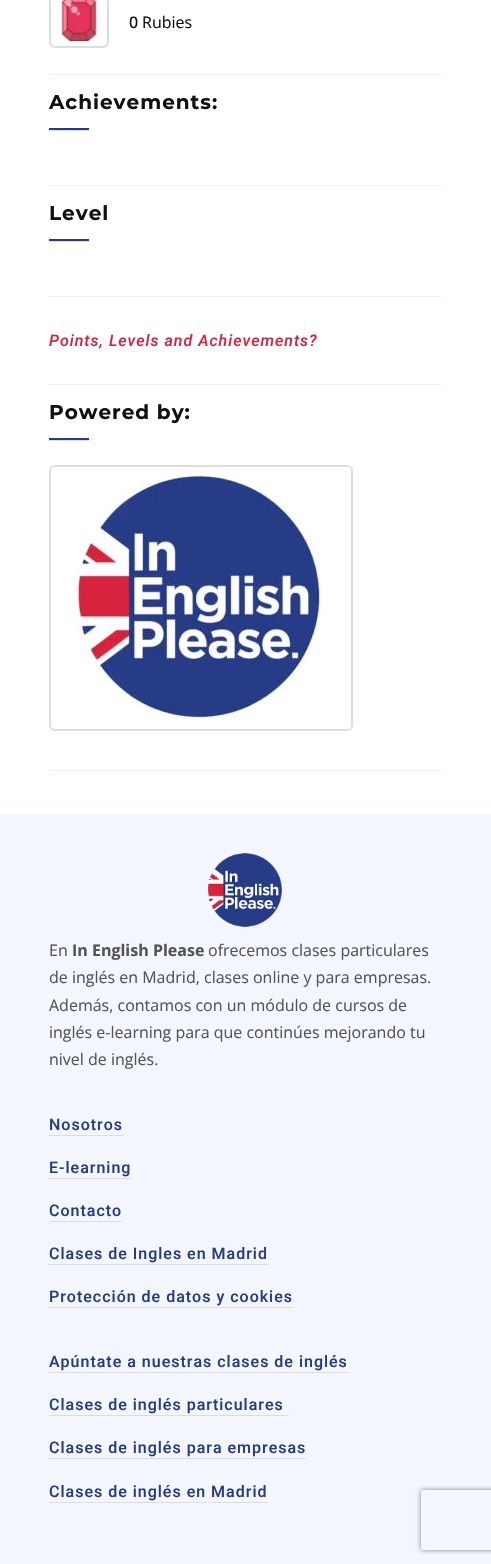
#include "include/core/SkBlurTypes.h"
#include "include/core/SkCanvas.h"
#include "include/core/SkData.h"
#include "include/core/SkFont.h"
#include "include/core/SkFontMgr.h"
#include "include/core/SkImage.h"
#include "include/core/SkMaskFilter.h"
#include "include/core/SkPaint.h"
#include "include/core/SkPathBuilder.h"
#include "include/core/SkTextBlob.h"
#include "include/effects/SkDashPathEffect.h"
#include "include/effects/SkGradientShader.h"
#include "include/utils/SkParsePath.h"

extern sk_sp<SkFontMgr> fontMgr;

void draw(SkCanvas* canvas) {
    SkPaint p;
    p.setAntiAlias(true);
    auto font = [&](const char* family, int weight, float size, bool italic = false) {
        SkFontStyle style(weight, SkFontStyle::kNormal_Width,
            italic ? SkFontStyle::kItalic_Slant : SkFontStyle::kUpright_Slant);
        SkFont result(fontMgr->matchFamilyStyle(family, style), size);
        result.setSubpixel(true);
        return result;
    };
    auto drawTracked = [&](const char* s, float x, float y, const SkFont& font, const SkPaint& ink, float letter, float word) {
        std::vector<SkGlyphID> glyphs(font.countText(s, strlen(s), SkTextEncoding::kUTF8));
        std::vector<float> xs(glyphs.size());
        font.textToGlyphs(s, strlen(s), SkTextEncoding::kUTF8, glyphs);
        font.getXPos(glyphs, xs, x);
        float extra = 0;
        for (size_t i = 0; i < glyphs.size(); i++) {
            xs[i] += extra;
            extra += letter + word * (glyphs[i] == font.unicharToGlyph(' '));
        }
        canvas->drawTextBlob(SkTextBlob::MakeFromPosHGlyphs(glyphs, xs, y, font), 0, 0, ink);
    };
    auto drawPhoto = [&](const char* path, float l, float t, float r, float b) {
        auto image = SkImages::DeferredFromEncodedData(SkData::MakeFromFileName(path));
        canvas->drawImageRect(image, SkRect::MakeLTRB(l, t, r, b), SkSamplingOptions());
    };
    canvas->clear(0xFFFFFFFF);
    p.setColor(0xFFF1F1F1);
    canvas->drawRect(SkRect::MakeLTRB(49, 74, 442, 75), p);
    p.setStyle(SkPaint::kStroke_Style);
    p.setStrokeWidth(2);
    p.setColor(0xFFDDDDDD);
    canvas->drawRoundRect(SkRect::MakeLTRB(50, -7, 108, 47), 5, 5, p);
    drawPhoto("media/1.png", 61, 0, 97, 41);
    auto font1 = font("Open Sans", 500, 16);
    p.setStyle(SkPaint::kFill_Style);
    p.setColor(0xFF111111);
    canvas->drawString("0", 129, 28, font1, p);
    auto font2 = font("Open Sans", 400, 16);
    canvas->drawString("Rubies", 142, 28, font2, p);
    p.setColor(0xFFF1F1F1);
    canvas->drawRect(SkRect::MakeLTRB(49, 185, 442, 186), p);
    auto font3 = font("Montserrat", 700, 20);
    p.setColor(0xFF111111);
    drawTracked("Achievements:", 49, 109, font3, p, 1, 0);
    {
        const struct { float l, t, r, b; SkColor color; } items[] = {
            {49, 130, 89, 131, 0xFFDDDDDD},
            {49, 128, 89, 130, 0xFF273B84},
            {49, 296, 442, 297, 0xFFF1F1F1},
        };
        for (auto [l, t, r, b, color] : items) {
            p.setColor(color);
            canvas->drawRect(SkRect::MakeLTRB(l, t, r, b), p);
        }
    }
    p.setColor(0xFF111111);
    drawTracked("Level", 49, 220, font3, p, 1, 0);
    {
        const struct { float l, t, r, b; SkColor color; } items[] = {
            {49, 241, 89, 242, 0xFFDDDDDD},
            {49, 239, 89, 241, 0xFF273B84},
            {49, 384, 442, 385, 0xFFF1F1F1},
        };
        for (auto [l, t, r, b, color] : items) {
            p.setColor(color);
            canvas->drawRect(SkRect::MakeLTRB(l, t, r, b), p);
        }
    }
    auto font4 = font("Roboto", 500, 16, true);
    p.setColor(0xFFD7223B);
    drawTracked("Points, Levels and Achievements?", 49, 346, font4, p, 1, 0);
    p.setColor(0xFFF1F1F1);
    canvas->drawRect(SkRect::MakeLTRB(49, 770, 442, 771), p);
    p.setColor(0xFF111111);
    drawTracked("Powered by:", 49, 419, font3, p, 1, 0);
    p.setColor(0xFFDDDDDD);
    canvas->drawRect(SkRect::MakeLTRB(49, 440, 89, 441), p);
    p.setColor(0xFF273B84);
    canvas->drawRect(SkRect::MakeLTRB(49, 438, 89, 440), p);
    p.setStyle(SkPaint::kStroke_Style);
    p.setColor(0xFFDDDDDD);
    canvas->drawRoundRect(SkRect::MakeLTRB(50, 466, 352, 730), 5, 5, p);
    drawPhoto("media/2.png", 51, 467, 351, 729);
    p.setStyle(SkPaint::kFill_Style);
    p.setColor(0xFFF3F6FD);
    canvas->drawRect(SkRect::MakeLTRB(0, 814, 491, 1564), p);
    drawPhoto("media/3.png", 208, 853, 282, 927);
    p.setColor(0xFF545454);
    canvas->drawString("En", 49, 956, font2, p);
    auto font5 = font("Open Sans", 700, 16);
    canvas->drawString("In English Please", 72, 956, font5, p);
    {
        const struct { const char* s; float x, y; } items[] = {
            {"ofrecemos clases particulares", 208, 956},
            {"de inglés en Madrid, clases online y para empresas.", 49, 983},
            {"Además, contamos con un módulo de cursos de", 49, 1011},
            {"inglés e-learning para que continúes mejorando tu", 49, 1038},
            {"nivel de inglés.", 49, 1065},
        };
        for (auto [s, x, y] : items) {
            canvas->drawString(s, x, y, font2, p);
        }
    }
    auto font6 = font("Roboto", 500, 16);
    p.setColor(0xFF253B85);
    drawTracked("Nosotros", 49, 1130, font6, p, 1, 0);
    p.setColor(0xFFDDDDDD);
    canvas->drawRect(SkRect::MakeLTRB(49, 1135, 123, 1136), p);
    p.setColor(0xFF253B85);
    drawTracked("E-learning", 49, 1173, font6, p, 1, 0);
    p.setColor(0xFFDDDDDD);
    canvas->drawRect(SkRect::MakeLTRB(49, 1178, 131, 1179), p);
    p.setColor(0xFF253B85);
    drawTracked("Contacto", 49, 1216, font6, p, 1, 0);
    p.setColor(0xFFDDDDDD);
    canvas->drawRect(SkRect::MakeLTRB(49, 1221, 122, 1222), p);
    p.setColor(0xFF253B85);
    drawTracked("Clases de Ingles en Madrid", 49, 1259, font6, p, 1, 0);
    p.setColor(0xFFDDDDDD);
    canvas->drawRect(SkRect::MakeLTRB(49, 1264, 268, 1265), p);
    p.setColor(0xFF253B85);
    drawTracked("Protección de datos y cookies", 49, 1302, font6, p, 1, 0);
    p.setColor(0xFFDDDDDD);
    canvas->drawRect(SkRect::MakeLTRB(49, 1307, 293, 1308), p);
    p.setColor(0xFF253B85);
    drawTracked("Apúntate a nuestras clases de inglés", 49, 1367, font6, p, 1, 0);
    p.setColor(0xFFDDDDDD);
    canvas->drawRect(SkRect::MakeLTRB(49, 1372, 348, 1373), p);
    p.setColor(0xFF253B85);
    drawTracked("Clases de inglés particulares", 49, 1410, font6, p, 1, 0);
    p.setColor(0xFFDDDDDD);
    canvas->drawRect(SkRect::MakeLTRB(49, 1415, 289, 1416), p);
    p.setColor(0xFF253B85);
    drawTracked("Clases de inglés para empresas", 49, 1453, font6, p, 1, 0);
    p.setColor(0xFFDDDDDD);
    canvas->drawRect(SkRect::MakeLTRB(49, 1458, 306, 1459), p);
    p.setColor(0xFF253B85);
    drawTracked("Clases de inglés en Madrid", 49, 1497, font6, p, 1, 0);
    p.setColor(0xFFDDDDDD);
    canvas->drawRect(SkRect::MakeLTRB(49, 1502, 268, 1503), p);
    canvas->save();
    canvas->clipPath(SkPathBuilder(SkPathFillType::kEvenOdd).moveTo(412, 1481).lineTo(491, 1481).lineTo(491, 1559).lineTo(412, 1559).close().moveTo(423, 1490).lineTo(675, 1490).cubicTo(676, 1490, 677, 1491, 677, 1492).lineTo(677, 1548).cubicTo(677, 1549, 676, 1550, 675, 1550).lineTo(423, 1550).cubicTo(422, 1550, 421, 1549, 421, 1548).lineTo(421, 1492).cubicTo(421, 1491, 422, 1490, 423, 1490).close().detach(), true);
    p.setColor(0xFF808080);
    p.setMaskFilter(SkMaskFilter::MakeBlur(kNormal_SkBlurStyle, 2.5f));
    canvas->drawRoundRect(SkRect::MakeLTRB(421, 1490, 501, 1550), 2, 2, p);
    p.setMaskFilter(nullptr);
    canvas->restore();
}
